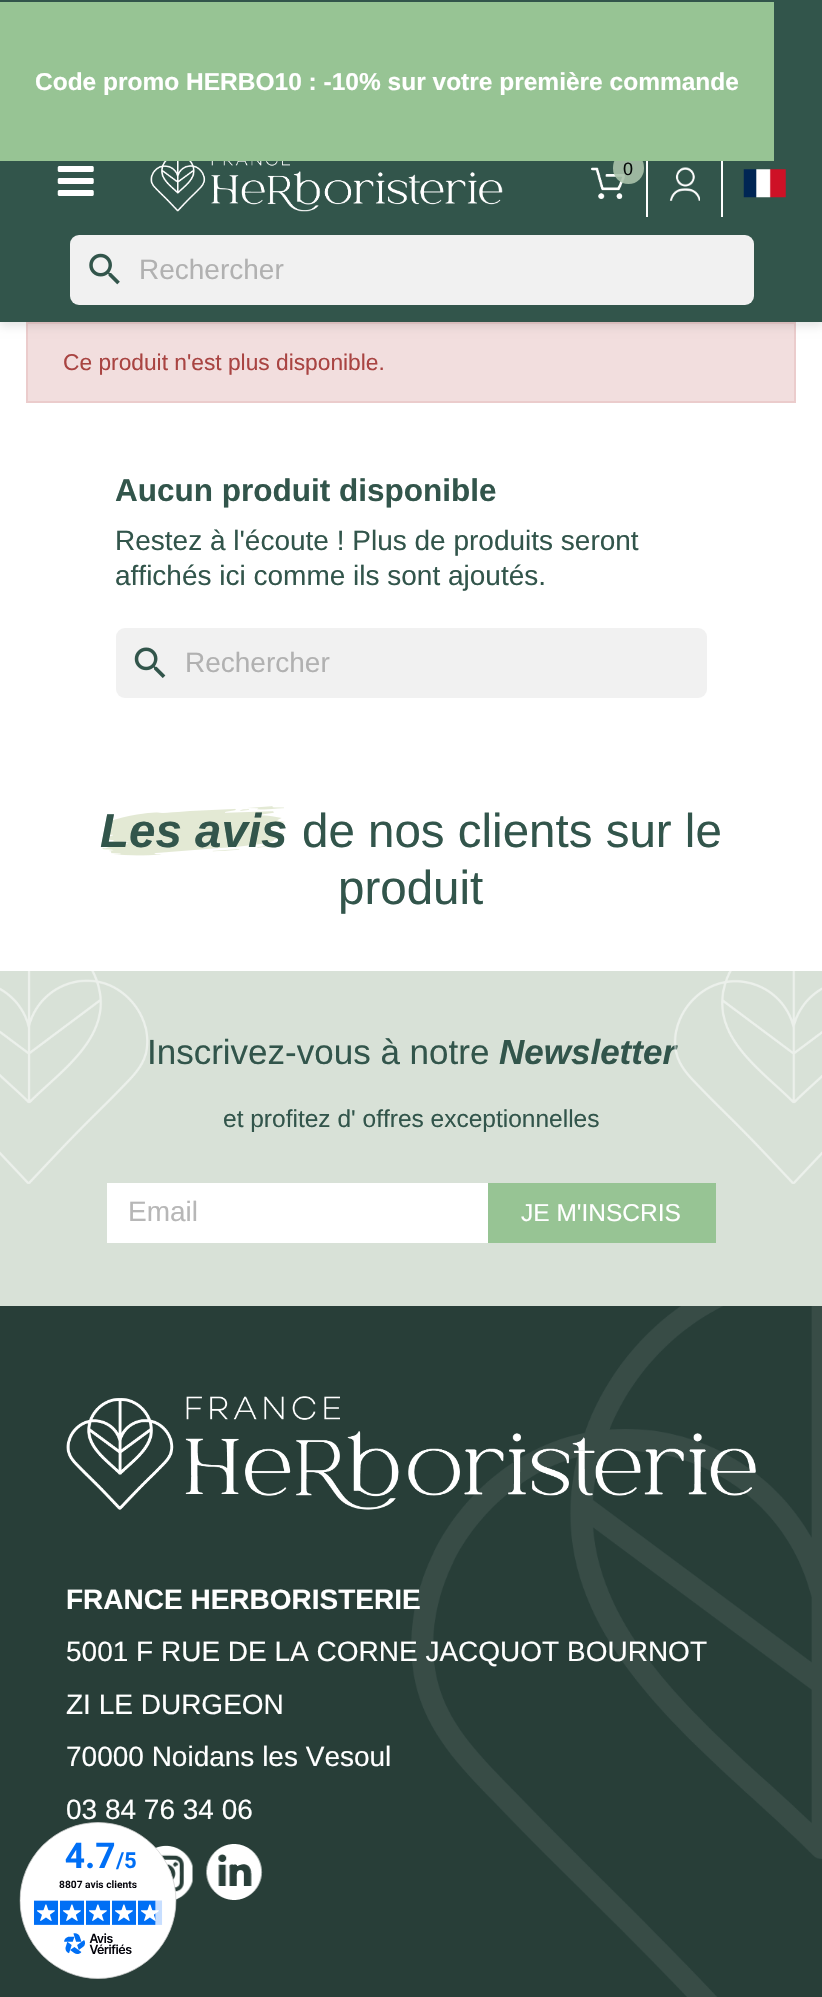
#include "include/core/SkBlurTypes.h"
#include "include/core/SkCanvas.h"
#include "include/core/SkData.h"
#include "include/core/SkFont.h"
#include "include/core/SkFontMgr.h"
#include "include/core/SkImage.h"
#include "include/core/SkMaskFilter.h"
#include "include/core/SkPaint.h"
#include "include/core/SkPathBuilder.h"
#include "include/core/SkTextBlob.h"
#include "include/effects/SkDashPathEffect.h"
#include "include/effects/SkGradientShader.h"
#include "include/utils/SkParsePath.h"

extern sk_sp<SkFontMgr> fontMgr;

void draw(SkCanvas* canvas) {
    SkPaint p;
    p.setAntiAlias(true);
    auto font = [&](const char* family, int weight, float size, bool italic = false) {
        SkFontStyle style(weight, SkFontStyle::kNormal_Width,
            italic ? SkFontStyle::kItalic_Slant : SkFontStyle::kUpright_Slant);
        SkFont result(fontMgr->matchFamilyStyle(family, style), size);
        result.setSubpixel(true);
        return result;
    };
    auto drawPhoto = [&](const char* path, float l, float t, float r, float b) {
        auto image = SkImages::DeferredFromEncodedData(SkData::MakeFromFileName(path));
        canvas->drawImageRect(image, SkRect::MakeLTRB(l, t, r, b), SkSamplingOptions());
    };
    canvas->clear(0xFFFFFFFF);
    p.setColor(0xFFF2DEDE);
    canvas->drawRect(SkRect::MakeLTRB(27, 323, 795, 402), p);
    p.setStyle(SkPaint::kStroke_Style);
    p.setStrokeWidth(2);
    p.setColor(0xFFEBCCCC);
    canvas->drawRect(SkRect::MakeLTRB(27, 323, 795, 402), p);
    p.setStyle(SkPaint::kFill_Style);
    p.setColor(0x1C000000);
    p.setMaskFilter(SkMaskFilter::MakeBlur(kNormal_SkBlurStyle, 4.5f));
    canvas->drawRect(SkRect::MakeLTRB(0, -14, 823, 326), p);
    p.setMaskFilter(nullptr);
    p.setColor(0xFF32554B);
    canvas->drawRect(SkRect::MakeLTRB(0, 0, 822, 322), p);
    drawPhoto("media/3.png", 590, 167, 625, 199);
    p.setColor(0xE6A9C2AA);
    canvas->drawRoundRect(SkRect::MakeLTRB(613, 152, 644, 184), 15.5f, 15.5f, p);
    p.setColor(0xFF97C494);
    canvas->drawRect(SkRect::MakeLTRB(0, 2, 774, 161), p);
    auto font1 = font("Liberation Sans", 700, 24.5f);
    p.setColor(0xFFFFFFFF);
    canvas->drawString("Code promo HERBO10 : -10% sur votre première commande", 35, 90, font1, p);
    drawPhoto("media/1.png", 57, 166, 94, 196);
    drawPhoto("media/2.png", 150, 161, 503, 212);
    auto font2 = font("Liberation Sans", 400, 18);
    p.setColor(0xFF050908);
    canvas->drawString("0", 623, 175, font2, p);
    p.setColor(0xFFFFFFFF);
    canvas->drawRect(SkRect::MakeLTRB(646, 161, 648, 217), p);
    drawPhoto("media/4.png", 669, 167, 700, 201);
    canvas->drawRect(SkRect::MakeLTRB(721, 161, 723, 217), p);
    drawPhoto("media/5.png", 743, 169, 786, 198);
    p.setColor(0xFFF1F1F1);
    canvas->drawRoundRect(SkRect::MakeLTRB(70, 235, 754, 305), 9, 9, p);
    drawPhoto("media/6.png", 89, 253, 120, 285);
    auto font3 = font("Liberation Sans", 400, 28);
    p.setColor(0xFFB1B1B1);
    canvas->drawString("Rechercher", 139, 279, font3, p);
    auto font4 = font("Liberation Sans", 400, 22.75f);
    p.setColor(0xFFA94442);
    canvas->drawString("Ce produit n'est plus disponible.", 63, 370, font4, p);
    auto font5 = font("Liberation Sans", 700, 31.5f);
    p.setColor(0xFF32554B);
    canvas->drawString("Aucun produit disponible", 115, 501, font5, p);
    canvas->drawString("Restez à l'écoute ! Plus de produits seront", 115, 550, font3, p);
    canvas->drawString("affichés ici comme ils sont ajoutés.", 115, 585, font3, p);
    p.setColor(0xFFF1F1F1);
    canvas->drawRoundRect(SkRect::MakeLTRB(116, 628, 707, 698), 9, 9, p);
    drawPhoto("media/7.png", 134, 647, 166, 678);
    p.setColor(0xFFB1B1B1);
    canvas->drawString("Rechercher", 185, 672, font3, p);
    drawPhoto("media/8.png", 102, 806, 285, 856);
    auto font6 = font("Liberation Sans", 700, 47.5f, true);
    p.setColor(0xFF32554B);
    canvas->drawString("Les avis", 100, 847, font6, p);
    auto font7 = font("Liberation Sans", 400, 47.5f);
    canvas->drawString("de nos clients sur le", 302, 847, font7, p);
    canvas->drawString("produit", 338, 904, font7, p);
    p.setColor(0xFFD8E1D7);
    canvas->drawRect(SkRect::MakeLTRB(0, 971, 822, 1306), p);
    drawPhoto("media/9.png", 0, 971, 149, 1184);
    auto font8 = font("Liberation Sans", 400, 35);
    p.setColor(0xFF32554B);
    canvas->drawString("Inscrivez-vous à notre", 147, 1064, font8, p);
    auto font9 = font("Liberation Sans", 700, 35, true);
    canvas->drawString("Newsletter", 499, 1064, font9, p);
    p.setColor(0xFF97C494);
    canvas->drawRect(SkRect::MakeLTRB(488, 1183, 716, 1243), p);
    drawPhoto("media/10.png", 673, 971, 822, 1184);
    auto font10 = font("Liberation Sans", 400, 24.5f);
    p.setColor(0xFF32554B);
    canvas->drawString("et profitez d' offres exceptionnelles", 223, 1127, font10, p);
    p.setColor(0xFFFFFFFF);
    canvas->drawRect(SkRect::MakeLTRB(107, 1183, 488, 1243), p);
    p.setColor(0xFFB7B7B7);
    canvas->drawString("Email", 128, 1221, font3, p);
    p.setColor(0xFFFFFFFF);
    canvas->drawString("JE M'INSCRIS", 521, 1221, font10, p);
    p.setColor(0xFF283E38);
    canvas->drawRect(SkRect::MakeLTRB(0, 1306, 822, 1997), p);
    drawPhoto("media/12.png", 66, 1396, 756, 1510);
    auto font11 = font("Liberation Sans", 700, 28);
    p.setColor(0xFFFFFFFF);
    canvas->drawString("FRANCE HERBORISTERIE", 66, 1609, font11, p);
    canvas->drawString("5001 F RUE DE LA CORNE JACQUOT BOURNOT", 66, 1661, font3, p);
    drawPhoto("media/11.png", 411, 1306, 822, 1997);
    {
        const struct { const char* s; float x, y; } items[] = {
            {"ZI LE DURGEON", 66, 1714},
            {"70000 Noidans les Vesoul", 66, 1766},
            {"03 84 76 34 06", 66, 1819},
        };
        for (auto [s, x, y] : items) {
            canvas->drawString(s, x, y, font3, p);
        }
    }
    drawPhoto("media/13.png", 154, 1845, 193, 1900);
    drawPhoto("media/14.png", 206, 1844, 263, 1900);
    drawPhoto("media/15.png", 19, 1822, 177, 1979);
}
